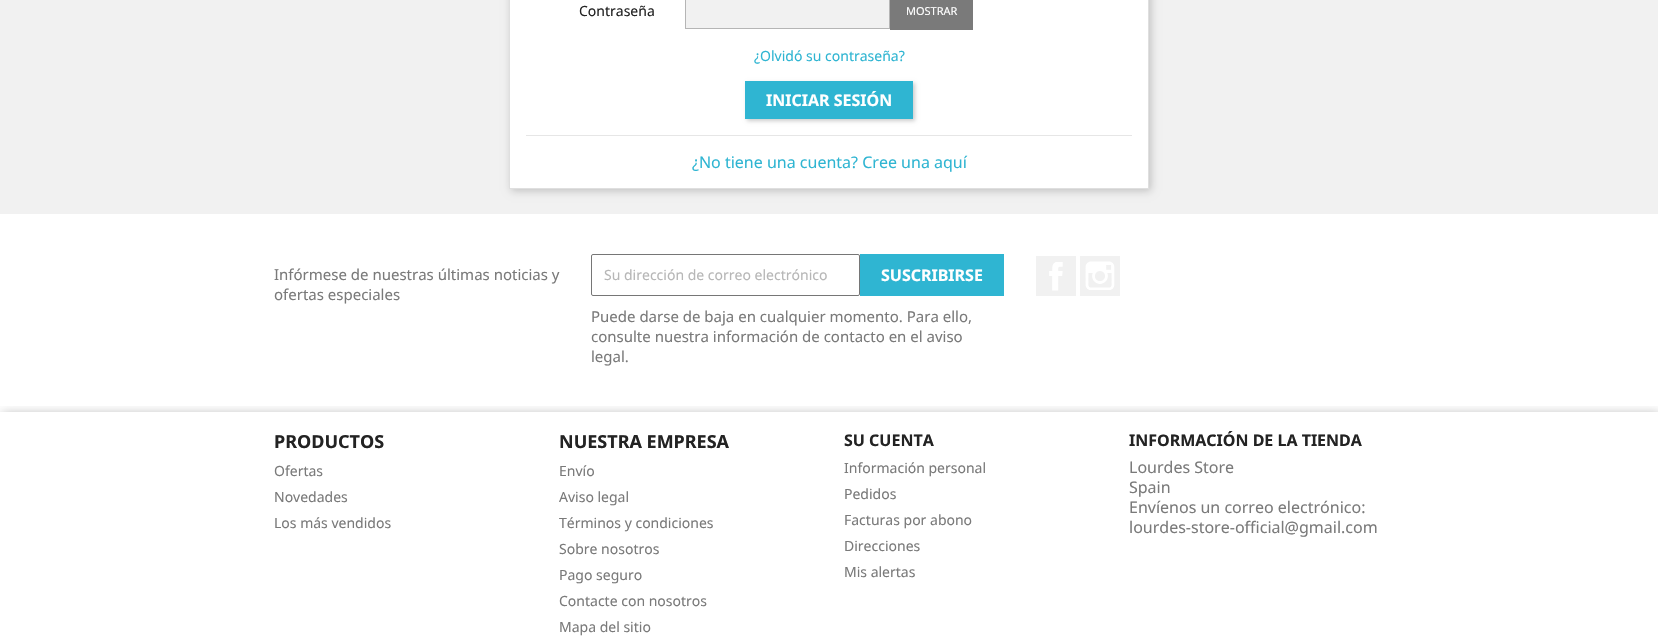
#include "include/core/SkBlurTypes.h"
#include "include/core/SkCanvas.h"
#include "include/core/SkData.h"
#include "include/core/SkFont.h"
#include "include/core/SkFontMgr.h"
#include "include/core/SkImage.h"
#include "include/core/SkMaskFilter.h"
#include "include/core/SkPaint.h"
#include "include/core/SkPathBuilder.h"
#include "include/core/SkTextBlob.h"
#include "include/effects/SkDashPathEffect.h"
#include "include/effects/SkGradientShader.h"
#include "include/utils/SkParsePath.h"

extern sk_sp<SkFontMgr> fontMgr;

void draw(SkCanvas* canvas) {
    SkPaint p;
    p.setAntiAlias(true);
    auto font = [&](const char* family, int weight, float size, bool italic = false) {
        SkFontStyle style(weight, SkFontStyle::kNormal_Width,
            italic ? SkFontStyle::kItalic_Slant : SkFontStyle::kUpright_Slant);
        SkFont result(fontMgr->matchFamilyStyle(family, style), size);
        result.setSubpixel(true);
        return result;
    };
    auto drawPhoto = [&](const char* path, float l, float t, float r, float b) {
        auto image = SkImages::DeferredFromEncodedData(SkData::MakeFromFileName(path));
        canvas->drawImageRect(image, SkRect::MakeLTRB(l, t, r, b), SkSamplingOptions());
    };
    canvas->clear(0xFFFFFFFF);
    p.setColor(0xFFF1F1F1);
    canvas->drawRect(SkRect::MakeLTRB(0, 0, 1658, 214), p);
    p.setColor(0x33000000);
    p.setMaskFilter(SkMaskFilter::MakeBlur(kNormal_SkBlurStyle, 4));
    canvas->drawRect(SkRect::MakeLTRB(511, -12, 1151, 191), p);
    p.setMaskFilter(nullptr);
    p.setColor(0xFFFFFFFF);
    canvas->drawRect(SkRect::MakeLTRB(509.5f, -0.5f, 1148.5f, 188.5f), p);
    p.setStyle(SkPaint::kStroke_Style);
    p.setStrokeWidth(1);
    p.setColor(0xFFDFDFDF);
    canvas->drawRect(SkRect::MakeLTRB(509.5f, -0.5f, 1148.5f, 188.5f), p);
    auto font1 = font("Noto Sans", 400, 14);
    p.setStyle(SkPaint::kFill_Style);
    p.setColor(0xFF232323);
    canvas->drawString("Contraseña", 579, 16, font1, p);
    p.setColor(0xFFF1F1F1);
    canvas->drawRect(SkRect::MakeLTRB(685.5f, -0.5f, 889.5f, 28.5f), p);
    p.setStyle(SkPaint::kStroke_Style);
    p.setColor(0xFFB5B5B5);
    canvas->drawRect(SkRect::MakeLTRB(685.5f, -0.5f, 889.5f, 28.5f), p);
    p.setStyle(SkPaint::kFill_Style);
    p.setColor(0xFF7A7A7A);
    canvas->drawRect(SkRect::MakeLTRB(890, 0, 973, 30), p);
    auto font2 = font("Noto Sans", 400, 11);
    p.setColor(0xFFFFFFFF);
    canvas->drawString("MOSTRAR", 906, 15, font2, p);
    p.setColor(0xFF2FB5D2);
    canvas->drawString("¿Olvidó su contraseña?", 754, 61, font1, p);
    p.setColor(0x33000000);
    p.setMaskFilter(SkMaskFilter::MakeBlur(kNormal_SkBlurStyle, 2));
    canvas->drawRect(SkRect::MakeLTRB(747, 83, 915, 121), p);
    p.setMaskFilter(nullptr);
    p.setColor(0xFF2FB5D2);
    canvas->drawRect(SkRect::MakeLTRB(745, 81, 913, 119), p);
    auto font3 = font("Noto Sans", 700, 16);
    p.setColor(0xFFFFFFFF);
    canvas->drawString("INICIAR SESIÓN", 766, 106, font3, p);
    p.setColor(0xFFE6E6E6);
    canvas->drawRect(SkRect::MakeLTRB(526, 135, 1132, 136), p);
    auto font4 = font("Noto Sans", 400, 16);
    p.setColor(0xFF2FB5D2);
    canvas->drawString("¿No tiene una cuenta? Cree una aquí", 692, 168, font4, p);
    auto font5 = font("Noto Sans", 400, 15);
    p.setColor(0xFF7A7A7A);
    canvas->drawString("Infórmese de nuestras últimas noticias y", 274, 280, font5, p);
    canvas->drawString("ofertas especiales", 274, 300, font5, p);
    p.setStyle(SkPaint::kStroke_Style);
    p.setColor(0xFF767676);
    canvas->drawRoundRect(SkRect::MakeLTRB(591.5f, 254.5f, 859.5f, 295.5f), 1.5f, 1.5f, p);
    p.setStyle(SkPaint::kFill_Style);
    p.setColor(0xFFB7B7B7);
    canvas->drawString("Su dirección de correo electrónico", 604, 280, font1, p);
    p.setColor(0xFF2FB5D2);
    canvas->drawRect(SkRect::MakeLTRB(860, 254, 1004, 296), p);
    p.setColor(0xFFFFFFFF);
    canvas->drawString("SUSCRIBIRSE", 881, 281, font3, p);
    p.setColor(0xFF7A7A7A);
    {
        const struct { const char* s; float x, y; } items[] = {
            {"Puede darse de baja en cualquier momento. Para ello,", 591, 322},
            {"consulte nuestra información de contacto en el aviso", 591, 342},
            {"legal.", 591, 362},
        };
        for (auto [s, x, y] : items) {
            canvas->drawString(s, x, y, font5, p);
        }
    }
    p.setColor(0xFFF1F1F1);
    canvas->drawRect(SkRect::MakeLTRB(1036, 256, 1076, 296), p);
    drawPhoto("media/1.png", 1049, 262, 1063, 291);
    canvas->drawRect(SkRect::MakeLTRB(1080, 256, 1120, 296), p);
    drawPhoto("media/2.png", 1085, 261, 1115, 290);
    canvas->save();
    canvas->clipRect(SkRect::MakeLTRB(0, 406, 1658, 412));
    p.setColor(0x4D000000);
    p.setMaskFilter(SkMaskFilter::MakeBlur(kNormal_SkBlurStyle, 5.5f));
    canvas->drawRect(SkRect::MakeLTRB(2, 414, 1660, 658), p);
    p.setMaskFilter(nullptr);
    canvas->restore();
    auto font6 = font("Noto Sans", 700, 18);
    p.setColor(0xFF232323);
    canvas->drawString("PRODUCTOS", 274, 448, font6, p);
    p.setColor(0xFF7A7A7A);
    {
        const struct { const char* s; float x, y; } items[] = {
            {"Ofertas", 274, 476},
            {"Novedades", 274, 502},
            {"Los más vendidos", 274, 528},
        };
        for (auto [s, x, y] : items) {
            canvas->drawString(s, x, y, font1, p);
        }
    }
    p.setColor(0xFF232323);
    canvas->drawString("NUESTRA EMPRESA", 559, 448, font6, p);
    p.setColor(0xFF7A7A7A);
    {
        const struct { const char* s; float x, y; } items[] = {
            {"Envío", 559, 476},
            {"Aviso legal", 559, 502},
            {"Términos y condiciones", 559, 528},
            {"Sobre nosotros", 559, 554},
            {"Pago seguro", 559, 580},
            {"Contacte con nosotros", 559, 606},
            {"Mapa del sitio", 559, 632},
        };
        for (auto [s, x, y] : items) {
            canvas->drawString(s, x, y, font1, p);
        }
    }
    p.setColor(0xFF232323);
    canvas->drawString("SU CUENTA", 844, 446, font3, p);
    p.setColor(0xFF7A7A7A);
    {
        const struct { const char* s; float x, y; } items[] = {
            {"Información personal", 844, 473},
            {"Pedidos", 844, 499},
            {"Facturas por abono", 844, 525},
            {"Direcciones", 844, 551},
            {"Mis alertas", 844, 577},
        };
        for (auto [s, x, y] : items) {
            canvas->drawString(s, x, y, font1, p);
        }
    }
    p.setColor(0xFF232323);
    canvas->drawString("INFORMACIÓN DE LA TIENDA", 1129, 446, font3, p);
    p.setColor(0xFF7A7A7A);
    {
        const struct { const char* s; float x, y; } items[] = {
            {"Lourdes Store", 1129, 473},
            {"Spain", 1129, 493},
            {"Envíenos un correo electrónico:", 1129, 513},
            {"lourdes-store-official@gmail.com", 1129, 533},
        };
        for (auto [s, x, y] : items) {
            canvas->drawString(s, x, y, font4, p);
        }
    }
}
